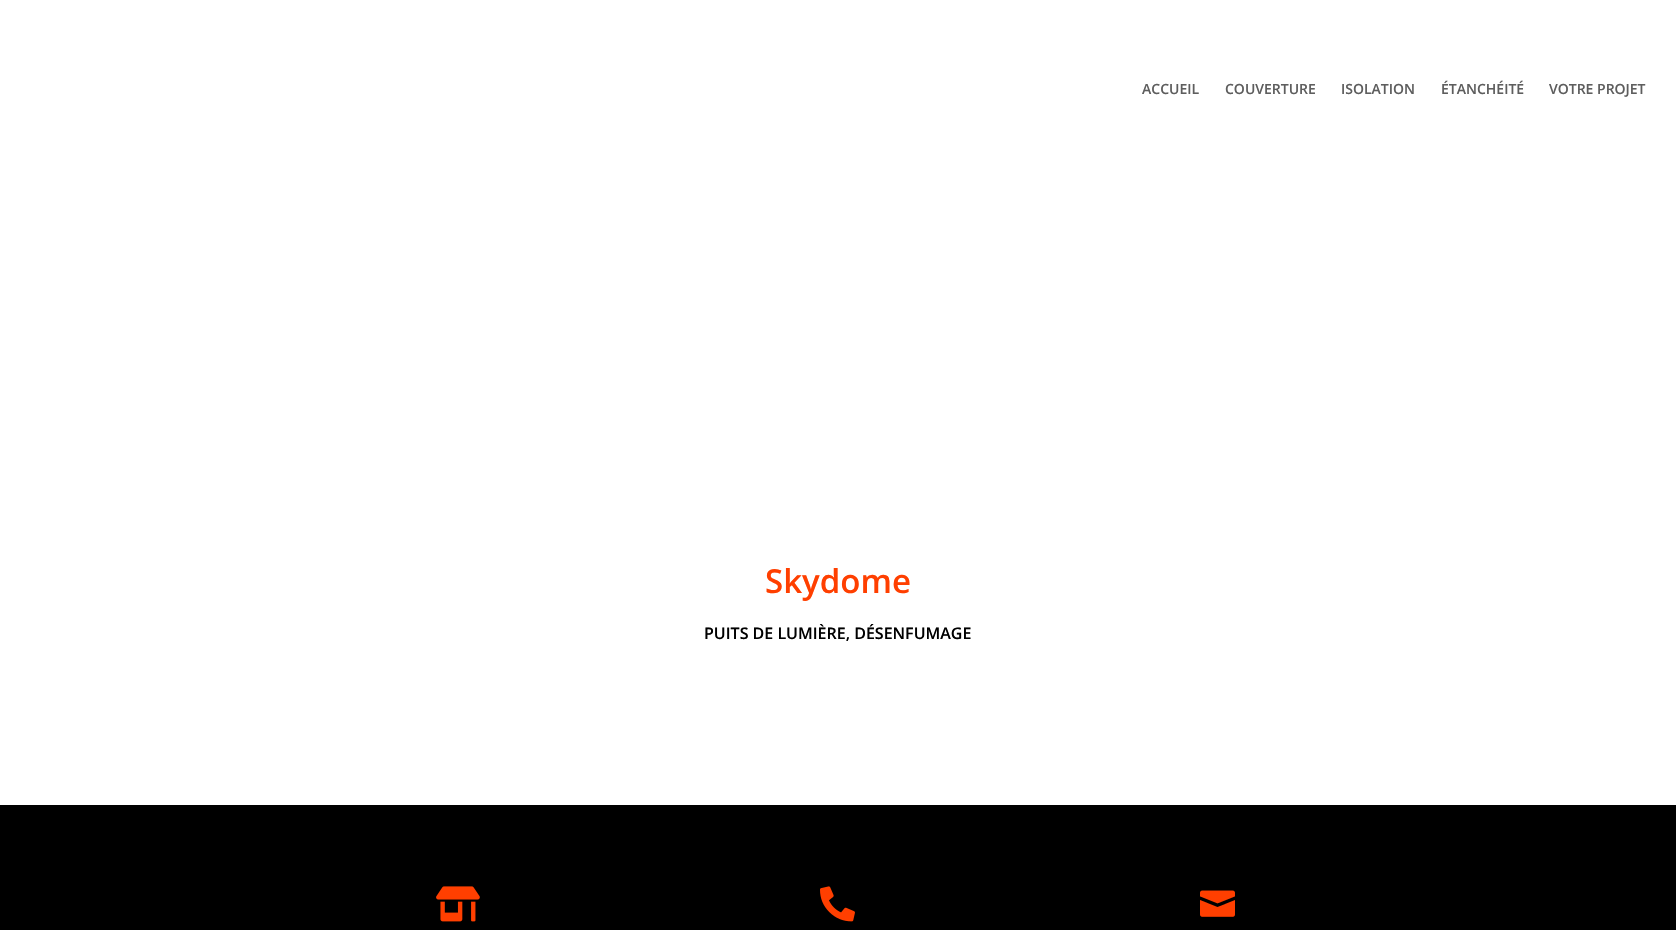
#include "include/core/SkBlurTypes.h"
#include "include/core/SkCanvas.h"
#include "include/core/SkData.h"
#include "include/core/SkFont.h"
#include "include/core/SkFontMgr.h"
#include "include/core/SkImage.h"
#include "include/core/SkMaskFilter.h"
#include "include/core/SkPaint.h"
#include "include/core/SkPathBuilder.h"
#include "include/core/SkTextBlob.h"
#include "include/effects/SkDashPathEffect.h"
#include "include/effects/SkGradientShader.h"
#include "include/utils/SkParsePath.h"

extern sk_sp<SkFontMgr> fontMgr;

void draw(SkCanvas* canvas) {
    SkPaint p;
    p.setAntiAlias(true);
    auto font = [&](const char* family, int weight, float size, bool italic = false) {
        SkFontStyle style(weight, SkFontStyle::kNormal_Width,
            italic ? SkFontStyle::kItalic_Slant : SkFontStyle::kUpright_Slant);
        SkFont result(fontMgr->matchFamilyStyle(family, style), size);
        result.setSubpixel(true);
        return result;
    };
    auto drawPhoto = [&](const char* path, float l, float t, float r, float b) {
        auto image = SkImages::DeferredFromEncodedData(SkData::MakeFromFileName(path));
        canvas->drawImageRect(image, SkRect::MakeLTRB(l, t, r, b), SkSamplingOptions());
    };
    canvas->clear(0xFFFFFFFF);
    auto font1 = font("Open Sans", 600, 14);
    p.setColor(0xFF5E5E5E);
    {
        const struct { const char* s; float x, y; } items[] = {
            {"ACCUEIL", 1142, 94},
            {"COUVERTURE", 1225, 94},
            {"ISOLATION", 1341, 94},
            {"ÉTANCHÉITÉ", 1441, 94},
            {"VOTRE PROJET", 1549, 94},
        };
        for (auto [s, x, y] : items) {
            canvas->drawString(s, x, y, font1, p);
        }
    }
    auto font2 = font("Open Sans", 600, 33);
    p.setColor(0xFFFF3F00);
    canvas->drawString("Skydome", 765, 593, font2, p);
    auto font3 = font("Open Sans", 600, 16);
    p.setColor(0xFF000000);
    canvas->drawString("PUITS DE LUMIÈRE, DÉSENFUMAGE", 704, 639, font3, p);
    canvas->drawRect(SkRect::MakeLTRB(0, 805, 1676, 930), p);
    drawPhoto("media/1.png", 436, 886, 480, 922);
    drawPhoto("media/2.png", 820, 886, 855, 922);
    drawPhoto("media/3.png", 1200, 890, 1235, 917);
}
